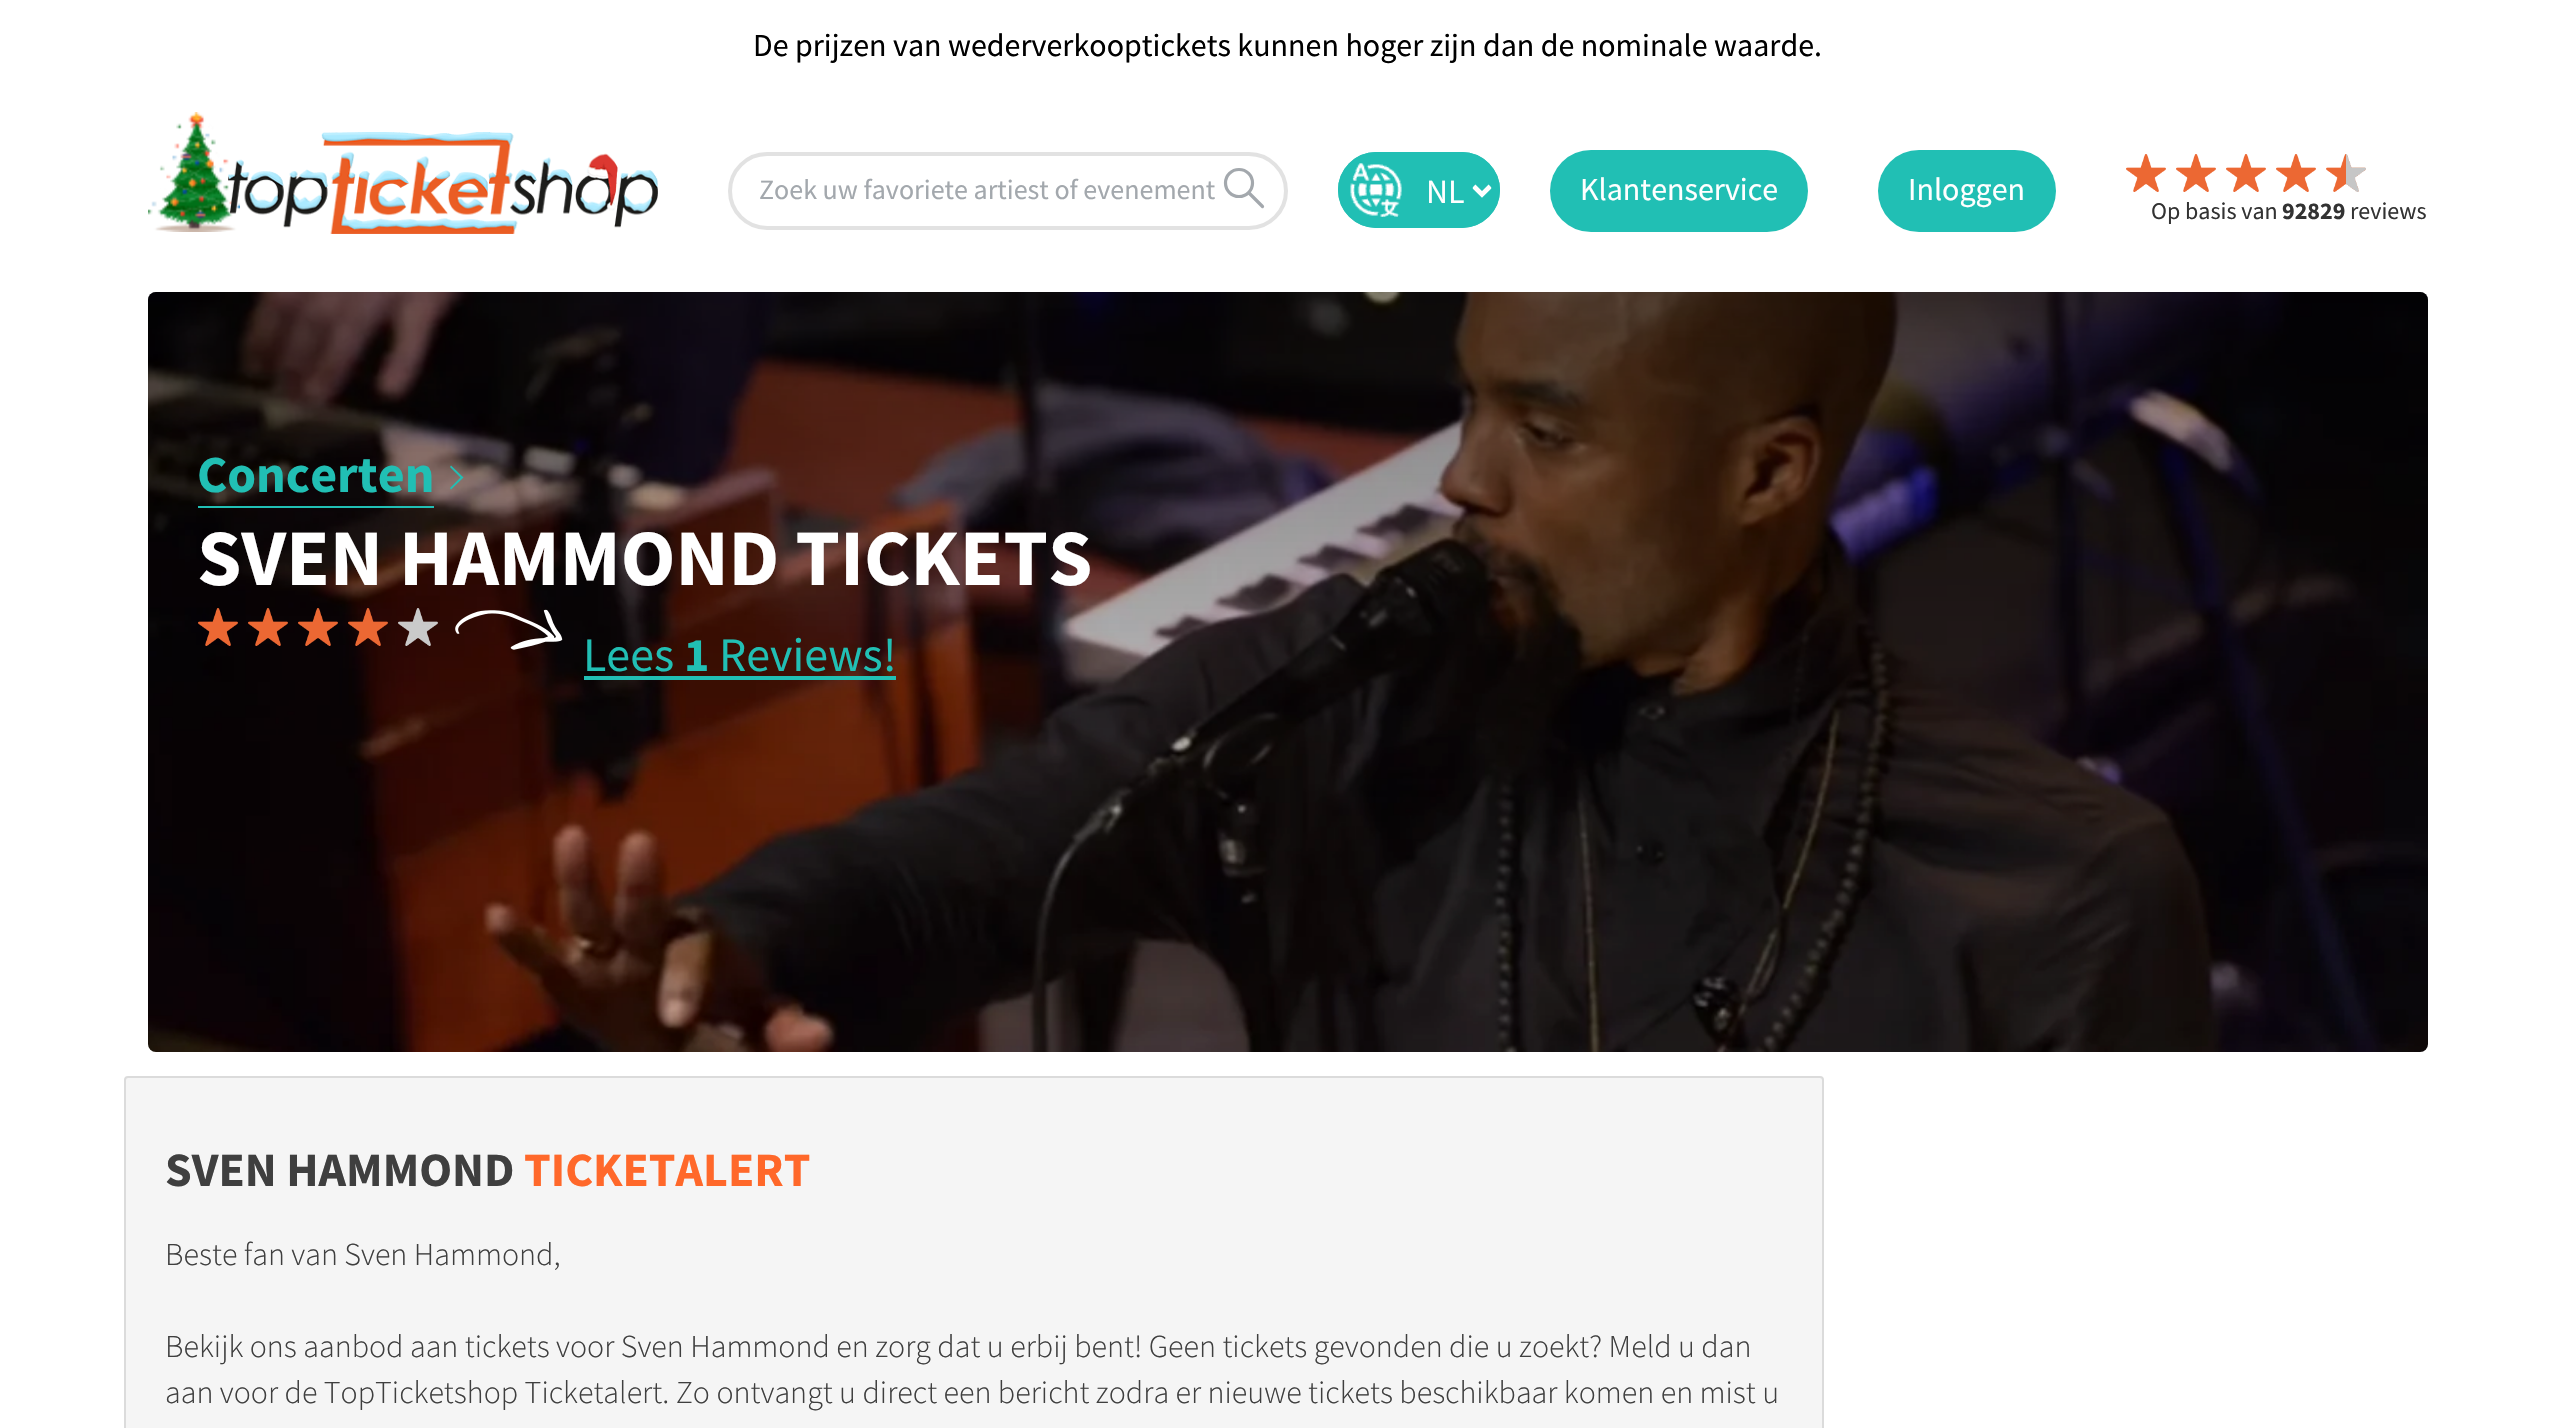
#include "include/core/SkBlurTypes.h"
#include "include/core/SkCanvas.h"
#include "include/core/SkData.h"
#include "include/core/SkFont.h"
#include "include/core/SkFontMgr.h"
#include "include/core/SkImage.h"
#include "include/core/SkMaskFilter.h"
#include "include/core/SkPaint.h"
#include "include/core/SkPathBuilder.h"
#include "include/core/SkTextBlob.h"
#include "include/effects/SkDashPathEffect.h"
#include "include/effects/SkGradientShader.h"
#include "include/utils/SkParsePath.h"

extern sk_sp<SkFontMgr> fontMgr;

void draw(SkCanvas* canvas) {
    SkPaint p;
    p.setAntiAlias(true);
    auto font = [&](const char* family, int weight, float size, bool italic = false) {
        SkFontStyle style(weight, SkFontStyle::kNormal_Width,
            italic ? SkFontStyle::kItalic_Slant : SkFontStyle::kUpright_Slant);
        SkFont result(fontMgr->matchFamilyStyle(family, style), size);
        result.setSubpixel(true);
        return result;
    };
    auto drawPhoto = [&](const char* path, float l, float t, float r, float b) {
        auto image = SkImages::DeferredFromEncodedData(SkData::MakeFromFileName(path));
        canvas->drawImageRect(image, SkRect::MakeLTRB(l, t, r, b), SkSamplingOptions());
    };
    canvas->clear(0xFFFFFFFF);
    auto font1 = font("Source Sans Pro", 400, 32);
    p.setColor(0xFF000000);
    canvas->drawString("De prijzen van wederverkooptickets kunnen hoger zijn dan de nominale waarde.", 753, 56, font1, p);
    drawPhoto("media/1.png", 148, 112, 240, 232);
    drawPhoto("media/2.png", 228, 132, 658, 234);
    p.setStyle(SkPaint::kStroke_Style);
    p.setStrokeWidth(4);
    p.setColor(0xFFE2E2E2);
    canvas->drawRoundRect(SkRect::MakeLTRB(730, 154, 1286, 228), 37, 37, p);
    auto font2 = font("Source Sans Pro", 400, 28);
    p.setStyle(SkPaint::kFill_Style);
    p.setColor(0xFFA3A8AD);
    canvas->drawString("Zoek uw favoriete artiest of evenement", 759, 199, font2, p);
    p.setStyle(SkPaint::kStroke_Style);
    p.setStrokeWidth(3.2f);
    canvas->drawCircle(1239, 183, 13.5f, p);
    p.setStrokeCap(SkPaint::kRound_Cap);
    p.setStrokeJoin(SkPaint::kRound_Join);
    canvas->drawPath(SkPathBuilder().moveTo(1249, 193).lineTo(1262.5f, 206.5f).detach(), p);
    p.setStyle(SkPaint::kFill_Style);
    p.setColor(0xFF21BFB4);
    canvas->drawRoundRect(SkRect::MakeLTRB(1338, 152, 1500, 228), 38, 38, p);
    drawPhoto("media/3.png", 1350, 163, 1492, 217);
    p.setStyle(SkPaint::kStroke_Style);
    p.setStrokeWidth(2);
    p.setStrokeCap(SkPaint::kButt_Cap);
    p.setStrokeJoin(SkPaint::kMiter_Join);
    canvas->drawRoundRect(SkRect::MakeLTRB(1339, 153, 1499, 227), 37, 37, p);
    p.setStrokeWidth(4);
    p.setColor(0xFFFFFFFF);
    canvas->drawPath(SkPathBuilder().moveTo(1474, 187).lineTo(1482, 195).lineTo(1490, 187).detach(), p);
    auto font3 = font("Source Sans Pro", 400, 34);
    p.setStyle(SkPaint::kFill_Style);
    canvas->drawString("NL", 1426, 203, font3, p);
    p.setColor(0xFF21BFB4);
    canvas->drawRoundRect(SkRect::MakeLTRB(1550, 150, 1808, 232), 41, 41, p);
    p.setColor(0xFFFFFFFF);
    canvas->drawString("Klantenservice", 1580, 200, font1, p);
    p.setColor(0xFF21BFB4);
    canvas->drawRoundRect(SkRect::MakeLTRB(1878, 150, 2056, 232), 41, 41, p);
    p.setColor(0xFFFFFFFF);
    canvas->drawString("Inloggen", 1908, 200, font1, p);
    drawPhoto("media/4.png", 2126, 154, 2166, 192);
    drawPhoto("media/4.png", 2176, 154, 2216, 192);
    drawPhoto("media/5.png", 2226, 154, 2266, 192);
    drawPhoto("media/6.png", 2276, 154, 2316, 192);
    drawPhoto("media/7.png", 2326, 154, 2366, 192);
    auto font4 = font("Source Sans Pro", 400, 24);
    p.setColor(0xFF333333);
    canvas->drawString("Op basis van", 2151, 219, font4, p);
    auto font5 = font("Source Sans Pro", 700, 24);
    canvas->drawString("92829", 2282, 219, font5, p);
    canvas->drawString("reviews", 2350, 219, font4, p);
    drawPhoto("media/8.png", 148, 292, 2428, 1052);
    {
        const SkColor colors[] = {0x80000000, 0x1A000000};
        const float stops[] = {0, 1};
        const SkPoint ends[] = {{1288, 292}, {1288, 1052}};
        p.setShader(SkGradientShader::MakeLinear(ends, colors, stops, 2, SkTileMode::kClamp));
        p.setAlpha(255);
    }
    canvas->drawRoundRect(SkRect::MakeLTRB(148, 292, 2428, 1052), 8, 8, p);
    auto font6 = font("Source Sans Pro", 700, 52);
    p.setShader(nullptr);
    p.setColor(0xFF21BFB4);
    canvas->drawString("Concerten", 197, 492, font6, p);
    canvas->drawPath(SkPathBuilder().moveTo(451, 489.5f).lineTo(463.5f, 477.5f).lineTo(451, 465.5f).lineTo(450, 467).lineTo(460.5f, 477.5f).lineTo(450, 488).close().detach(), p);
    canvas->drawRect(SkRect::MakeLTRB(198, 506, 434, 508), p);
    auto font7 = font("Source Sans Pro", 700, 80);
    p.setColor(0xFFFFFFFF);
    canvas->drawString("SVEN HAMMOND TICKETS", 197, 585, font7, p);
    drawPhoto("media/9.png", 198, 608, 238, 646);
    drawPhoto("media/10.png", 248, 608, 288, 646);
    drawPhoto("media/11.png", 298, 608, 338, 646);
    drawPhoto("media/12.png", 348, 608, 388, 646);
    drawPhoto("media/13.png", 398, 608, 438, 646);
    drawPhoto("media/14.png", 455, 609, 563, 650);
    auto font8 = font("Source Sans Pro", 400, 48);
    p.setColor(0xFF21BFB4);
    canvas->drawString("Lees", 583, 671, font8, p);
    canvas->drawRect(SkRect::MakeLTRB(584, 676, 896, 680), p);
    auto font9 = font("Source Sans Pro", 700, 48);
    canvas->drawString("1", 684, 671, font9, p);
    canvas->drawString("Reviews!", 719, 671, font8, p);
    p.setColor(0xFFF5F5F5);
    canvas->drawRoundRect(SkRect::MakeLTRB(125, 1077, 1823, 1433), 3, 3, p);
    p.setStyle(SkPaint::kStroke_Style);
    p.setStrokeWidth(2);
    p.setColor(0xFFDBDBDB);
    canvas->drawRoundRect(SkRect::MakeLTRB(125, 1077, 1823, 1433), 3, 3, p);
    p.setStyle(SkPaint::kFill_Style);
    p.setColor(0xFF3F3F3F);
    canvas->drawString("SVEN HAMMOND", 165, 1186, font9, p);
    p.setColor(0xFFFF682A);
    canvas->drawString("TICKETALERT", 524, 1186, font9, p);
    auto font10 = font("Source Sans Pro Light", 300, 32);
    p.setColor(0xFF3F3F3F);
    {
        const struct { const char* s; float x, y; } items[] = {
            {"Beste fan van Sven Hammond,", 165, 1265},
            {"Bekijk ons aanbod aan tickets voor Sven Hammond en zorg dat u erbij bent! Geen tickets gevonden die u zoekt? Meld u dan", 165, 1357},
            {"aan voor de TopTicketshop Ticketalert. Zo ontvangt u direct een bericht zodra er nieuwe tickets beschikbaar komen en mist u", 165, 1403},
        };
        for (auto [s, x, y] : items) {
            canvas->drawString(s, x, y, font10, p);
        }
    }
}
